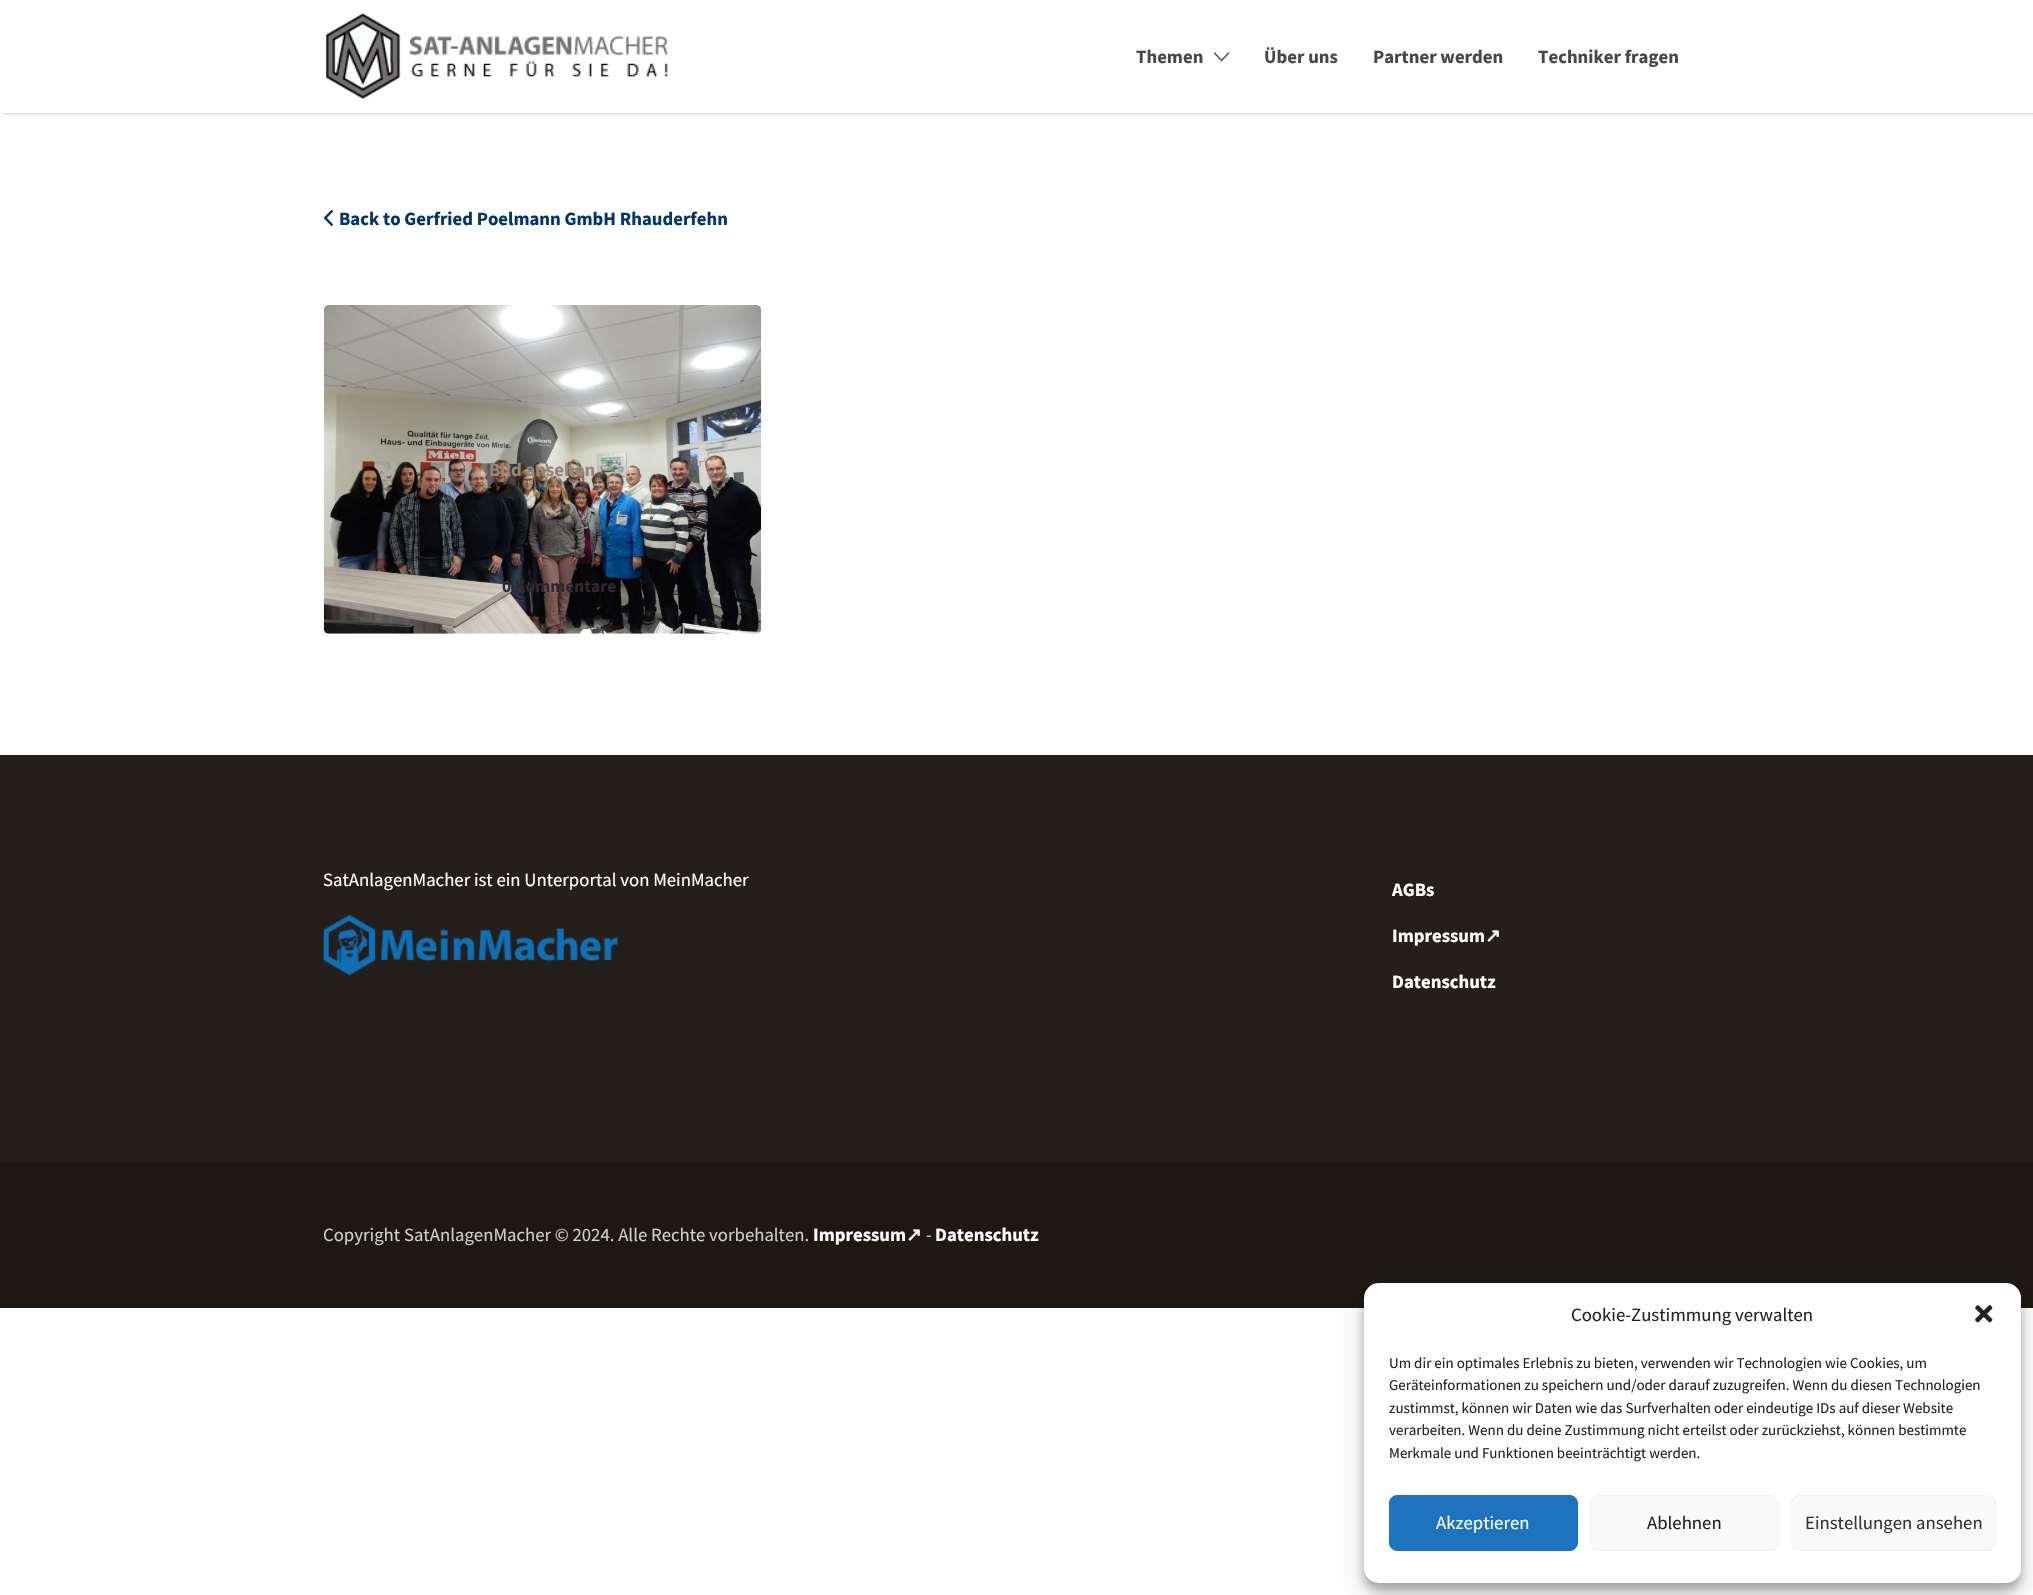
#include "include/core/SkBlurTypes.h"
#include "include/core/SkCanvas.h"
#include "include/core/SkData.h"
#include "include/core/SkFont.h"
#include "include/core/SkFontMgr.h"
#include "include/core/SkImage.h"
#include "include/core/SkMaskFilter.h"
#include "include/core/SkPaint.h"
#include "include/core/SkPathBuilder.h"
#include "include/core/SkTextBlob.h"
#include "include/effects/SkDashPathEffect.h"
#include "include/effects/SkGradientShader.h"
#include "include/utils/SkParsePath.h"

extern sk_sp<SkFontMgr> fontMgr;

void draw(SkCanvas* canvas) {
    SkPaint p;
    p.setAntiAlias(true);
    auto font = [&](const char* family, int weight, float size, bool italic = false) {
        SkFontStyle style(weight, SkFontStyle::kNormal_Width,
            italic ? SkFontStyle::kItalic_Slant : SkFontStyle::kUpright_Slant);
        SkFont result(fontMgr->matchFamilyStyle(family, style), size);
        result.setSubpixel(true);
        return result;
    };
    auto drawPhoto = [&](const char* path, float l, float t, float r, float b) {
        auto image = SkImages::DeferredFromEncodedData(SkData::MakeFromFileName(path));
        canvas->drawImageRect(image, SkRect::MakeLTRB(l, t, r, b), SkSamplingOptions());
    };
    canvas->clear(0xFFFFFFFF);
    p.setColor(0x4D000000);
    p.setMaskFilter(SkMaskFilter::MakeBlur(kNormal_SkBlurStyle, 2));
    canvas->drawRect(SkRect::MakeLTRB(3, 0, 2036, 113), p);
    p.setMaskFilter(nullptr);
    p.setColor(0xFFFFFFFF);
    canvas->drawRect(SkRect::MakeLTRB(0, 0, 2033, 113), p);
    drawPhoto("media/1.png", 326, 13, 668, 99);
    auto font1 = font("Source Sans Pro", 700, 18.75f);
    p.setColor(0xFF484848);
    canvas->drawString("Themen", 1136, 63, font1, p);
    drawPhoto("media/2.png", 1213, 52, 1230, 62);
    {
        const struct { const char* s; float x, y; } items[] = {
            {"Über uns", 1264, 63},
            {"Partner werden", 1373, 63},
            {"Techniker fragen", 1538, 63},
        };
        for (auto [s, x, y] : items) {
            canvas->drawString(s, x, y, font1, p);
        }
    }
    drawPhoto("media/3.png", 323, 209, 334, 227);
    p.setColor(0xFF003768);
    canvas->drawString("Back to Gerfried Poelmann GmbH Rhauderfehn", 339, 225, font1, p);
    drawPhoto("media/4.png", 323, 305, 762, 634);
    p.setColor(0xFF968578);
    canvas->drawString("Bild ansehen", 489, 476, font1, p);
    auto font2 = font("Source Sans Pro", 700, 17.5f);
    p.setColor(0xFF302A2D);
    canvas->drawString("0 Kommentare", 502, 592, font2, p);
    p.setColor(0xFF241F1B);
    canvas->drawRect(SkRect::MakeLTRB(0, 755, 2033, 1163), p);
    auto font3 = font("Source Sans Pro", 400, 18.75f);
    p.setColor(0xFFFFFFFF);
    canvas->drawString("SatAnlagenMacher ist ein Unterportal von MeinMacher", 323, 886, font3, p);
    drawPhoto("media/5.png", 323, 915, 618, 975);
    canvas->drawString("AGBs", 1392, 896, font1, p);
    canvas->drawString("Impressum", 1392, 942, font1, p);
    auto font4 = font("DejaVu Sans", 700, 18.75f);
    canvas->drawString("↗", 1485, 942, font4, p);
    canvas->drawString("Datenschutz", 1392, 988, font1, p);
    p.setColor(0xFF1E1813);
    canvas->drawRect(SkRect::MakeLTRB(0, 1163, 2033, 1308), p);
    p.setColor(0xFFCECECE);
    canvas->drawString("Copyright SatAnlagenMacher © 2024. Alle Rechte vorbehalten.", 323, 1241, font3, p);
    p.setColor(0xFFFFFFFF);
    canvas->drawString("Impressum", 813, 1241, font1, p);
    canvas->drawString("↗", 906, 1241, font4, p);
    p.setColor(0xFFCECECE);
    canvas->drawString("-", 926, 1241, font3, p);
    p.setColor(0xFFFFFFFF);
    canvas->drawString("Datenschutz", 935, 1241, font1, p);
    p.setColor(0x3B000000);
    p.setMaskFilter(SkMaskFilter::MakeBlur(kNormal_SkBlurStyle, 4));
    canvas->drawRoundRect(SkRect::MakeLTRB(1364, 1290, 2021, 1590), 15, 15, p);
    p.setMaskFilter(nullptr);
    p.setColor(0x30000000);
    p.setMaskFilter(SkMaskFilter::MakeBlur(kNormal_SkBlurStyle, 12.5f));
    canvas->drawRoundRect(SkRect::MakeLTRB(1364, 1295, 2021, 1595), 15, 15, p);
    p.setMaskFilter(nullptr);
    p.setColor(0xFFFFFFFF);
    canvas->drawRoundRect(SkRect::MakeLTRB(1364, 1283, 2021, 1583), 15, 15, p);
    p.setColor(0xFF222222);
    canvas->drawString("Cookie-Zustimmung verwalten", 1571, 1321, font3, p);
    drawPhoto("media/6.png", 1975, 1305, 1993, 1323);
    auto font5 = font("Source Sans Pro", 400, 15);
    {
        const struct { const char* s; float x, y; } items[] = {
            {"Um dir ein optimales Erlebnis zu bieten, verwenden wir Technologien wie Cookies, um", 1389, 1368},
            {"Geräteinformationen zu speichern und/oder darauf zuzugreifen. Wenn du diesen Technologien", 1389, 1390},
            {"zustimmst, können wir Daten wie das Surfverhalten oder eindeutige IDs auf dieser Website", 1389, 1413},
            {"verarbeiten. Wenn du deine Zustimmung nicht erteilst oder zurückziehst, können bestimmte", 1389, 1435},
            {"Merkmale und Funktionen beeinträchtigt werden.", 1389, 1458},
        };
        for (auto [s, x, y] : items) {
            canvas->drawString(s, x, y, font5, p);
        }
    }
    p.setColor(0xFF1E73BE);
    canvas->drawRoundRect(SkRect::MakeLTRB(1389.5f, 1495.5f, 1577.5f, 1550.5f), 7.5f, 7.5f, p);
    p.setStyle(SkPaint::kStroke_Style);
    p.setStrokeWidth(1);
    canvas->drawRoundRect(SkRect::MakeLTRB(1389.5f, 1495.5f, 1577.5f, 1550.5f), 7.5f, 7.5f, p);
    p.setStyle(SkPaint::kFill_Style);
    p.setColor(0xFFFFFFFF);
    canvas->drawString("Akzeptieren", 1436, 1529, font3, p);
    p.setColor(0xFFF9F9F9);
    canvas->drawRoundRect(SkRect::MakeLTRB(1590.5f, 1495.5f, 1778.5f, 1550.5f), 7.5f, 7.5f, p);
    p.setStyle(SkPaint::kStroke_Style);
    p.setColor(0xFFF2F2F2);
    canvas->drawRoundRect(SkRect::MakeLTRB(1590.5f, 1495.5f, 1778.5f, 1550.5f), 7.5f, 7.5f, p);
    p.setStyle(SkPaint::kFill_Style);
    p.setColor(0xFF222222);
    canvas->drawString("Ablehnen", 1647, 1529, font3, p);
    p.setColor(0xFFF9F9F9);
    canvas->drawRoundRect(SkRect::MakeLTRB(1791.5f, 1495.5f, 1995.5f, 1550.5f), 7.5f, 7.5f, p);
    p.setStyle(SkPaint::kStroke_Style);
    p.setColor(0xFFF2F2F2);
    canvas->drawRoundRect(SkRect::MakeLTRB(1791.5f, 1495.5f, 1995.5f, 1550.5f), 7.5f, 7.5f, p);
    p.setStyle(SkPaint::kFill_Style);
    p.setColor(0xFF333333);
    canvas->drawString("Einstellungen ansehen", 1805, 1529, font3, p);
}
